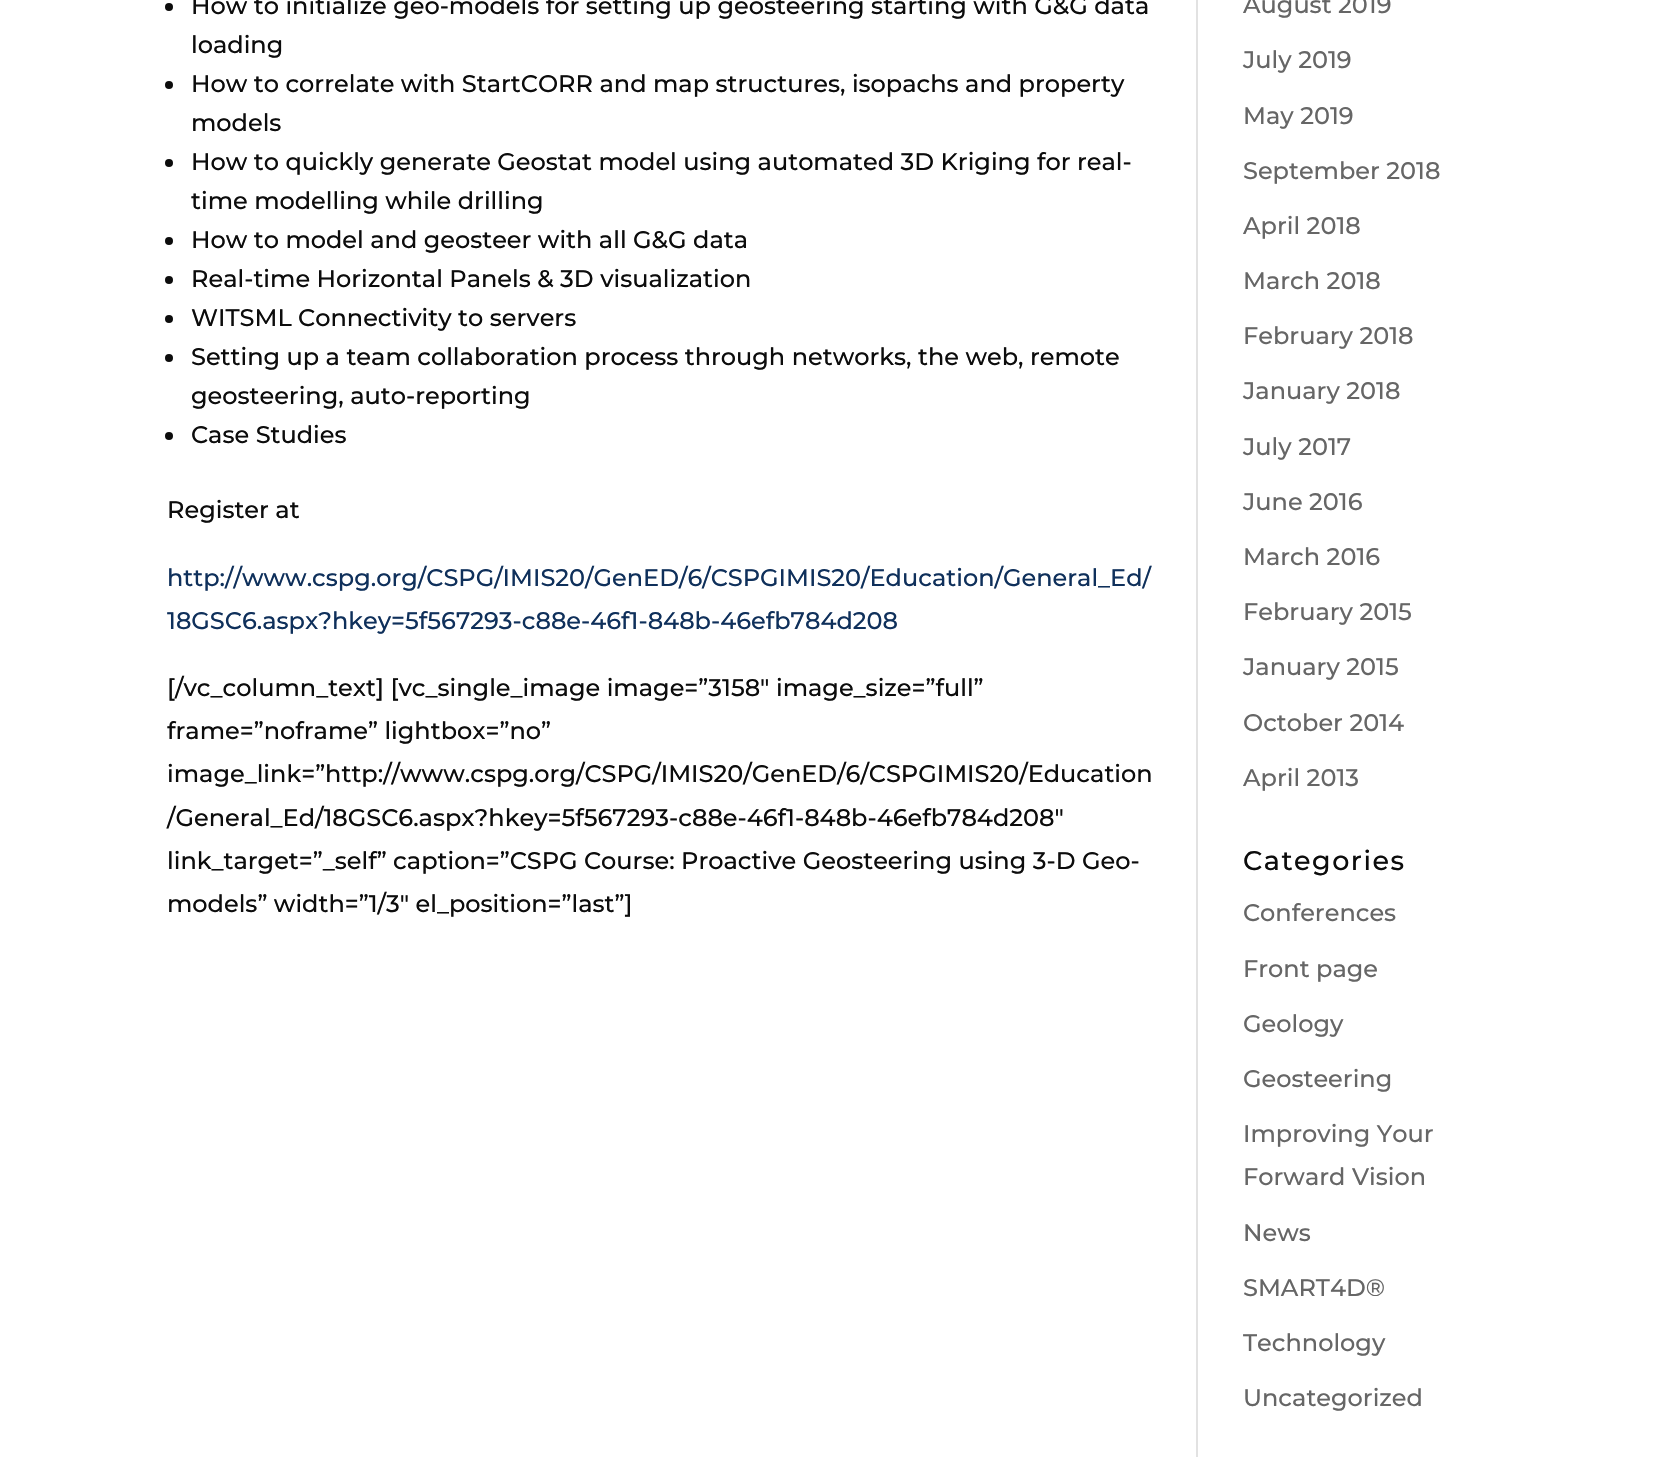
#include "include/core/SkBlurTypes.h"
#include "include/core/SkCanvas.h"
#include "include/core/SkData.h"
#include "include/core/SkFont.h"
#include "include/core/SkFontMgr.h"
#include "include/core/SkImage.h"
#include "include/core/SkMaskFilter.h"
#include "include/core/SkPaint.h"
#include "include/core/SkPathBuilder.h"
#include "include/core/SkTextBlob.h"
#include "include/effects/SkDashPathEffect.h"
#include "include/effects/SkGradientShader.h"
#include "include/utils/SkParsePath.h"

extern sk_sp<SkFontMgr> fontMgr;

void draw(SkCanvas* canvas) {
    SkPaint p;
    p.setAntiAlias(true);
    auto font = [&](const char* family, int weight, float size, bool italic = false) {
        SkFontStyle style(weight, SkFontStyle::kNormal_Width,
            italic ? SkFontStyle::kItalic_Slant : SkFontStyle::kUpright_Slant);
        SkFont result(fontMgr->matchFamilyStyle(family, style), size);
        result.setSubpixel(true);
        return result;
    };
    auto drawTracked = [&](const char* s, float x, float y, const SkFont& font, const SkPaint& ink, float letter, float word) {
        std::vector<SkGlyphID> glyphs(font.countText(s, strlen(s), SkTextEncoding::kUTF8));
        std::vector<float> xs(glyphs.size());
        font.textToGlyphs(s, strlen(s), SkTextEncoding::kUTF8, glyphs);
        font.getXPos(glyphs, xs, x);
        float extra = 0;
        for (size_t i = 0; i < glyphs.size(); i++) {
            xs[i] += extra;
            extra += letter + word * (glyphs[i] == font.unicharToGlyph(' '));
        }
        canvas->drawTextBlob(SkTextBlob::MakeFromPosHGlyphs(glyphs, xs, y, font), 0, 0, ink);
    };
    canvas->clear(0xFFFFFFFF);
    p.setColor(0xFF0C0C0C);
    canvas->drawCircle(169, 7, 4, p);
    auto font1 = font("Montserrat", 500, 24);
    canvas->drawString("How to initialize geo-models for setting up geosteering starting with G&G data", 191, 14, font1, p);
    canvas->drawString("loading", 191, 53, font1, p);
    canvas->drawCircle(169, 85, 4, p);
    canvas->drawString("How to correlate with StartCORR and map structures, isopachs and property", 191, 92, font1, p);
    canvas->drawString("models", 191, 131, font1, p);
    canvas->drawCircle(169, 163, 4, p);
    canvas->drawString("How to quickly generate Geostat model using automated 3D Kriging for real-", 191, 170, font1, p);
    canvas->drawString("time modelling while drilling", 191, 209, font1, p);
    canvas->drawCircle(169, 241, 4, p);
    canvas->drawString("How to model and geosteer with all G&G data", 191, 248, font1, p);
    canvas->drawCircle(169, 280, 4, p);
    canvas->drawString("Real-time Horizontal Panels & 3D visualization", 191, 287, font1, p);
    canvas->drawCircle(169, 319, 4, p);
    canvas->drawString("WITSML Connectivity to servers", 191, 326, font1, p);
    canvas->drawCircle(169, 358, 4, p);
    canvas->drawString("Setting up a team collaboration process through networks, the web, remote", 191, 365, font1, p);
    canvas->drawString("geosteering, auto-reporting", 191, 404, font1, p);
    canvas->drawCircle(169, 436, 4, p);
    canvas->drawString("Case Studies", 191, 443, font1, p);
    canvas->drawString("Register at", 167, 518, font1, p);
    p.setColor(0xFF0F305B);
    canvas->drawString("http://www.cspg.org/CSPG/IMIS20/GenED/6/CSPGIMIS20/Education/General_Ed/", 167, 586, font1, p);
    canvas->drawString("18GSC6.aspx?hkey=5f567293-c88e-46f1-848b-46efb784d208", 167, 629, font1, p);
    p.setColor(0xFF0C0C0C);
    {
        const struct { const char* s; float x, y; } items[] = {
            {"[/vc_column_text] [vc_single_image image=”3158″ image_size=”full”", 167, 696},
            {"frame=”noframe” lightbox=”no”", 167, 739},
            {"image_link=”http://www.cspg.org/CSPG/IMIS20/GenED/6/CSPGIMIS20/Education", 167, 782},
            {"/General_Ed/18GSC6.aspx?hkey=5f567293-c88e-46f1-848b-46efb784d208″", 167, 826},
            {"link_target=”_self” caption=”CSPG Course: Proactive Geosteering using 3-D Geo-", 167, 869},
            {"models” width=”1/3″ el_position=”last”]", 167, 912},
        };
        for (auto [s, x, y] : items) {
            canvas->drawString(s, x, y, font1, p);
        }
    }
    p.setColor(0xFF666666);
    {
        const struct { const char* s; float x, y; } items[] = {
            {"August 2019", 1243, 13},
            {"July 2019", 1243, 68},
            {"May 2019", 1243, 124},
            {"September 2018", 1243, 179},
            {"April 2018", 1243, 234},
            {"March 2018", 1243, 289},
            {"February 2018", 1243, 344},
            {"January 2018", 1243, 399},
            {"July 2017", 1243, 455},
            {"June 2016", 1243, 510},
            {"March 2016", 1243, 565},
            {"February 2015", 1243, 620},
            {"January 2015", 1243, 675},
            {"October 2014", 1243, 731},
            {"April 2013", 1243, 786},
        };
        for (auto [s, x, y] : items) {
            canvas->drawString(s, x, y, font1, p);
        }
    }
    auto font2 = font("Montserrat", 500, 27);
    p.setColor(0xFF0C0C0C);
    drawTracked("Categories", 1243, 870, font2, p, 1.5f, 0);
    p.setColor(0xFF666666);
    {
        const struct { const char* s; float x, y; } items[] = {
            {"Conferences", 1243, 921},
            {"Front page", 1243, 977},
            {"Geology", 1243, 1032},
            {"Geosteering", 1243, 1087},
            {"Improving Your", 1243, 1142},
            {"Forward Vision", 1243, 1185},
            {"News", 1243, 1241},
            {"SMART4D®", 1243, 1296},
            {"Technology", 1243, 1351},
            {"Uncategorized", 1243, 1406},
        };
        for (auto [s, x, y] : items) {
            canvas->drawString(s, x, y, font1, p);
        }
    }
    p.setColor(0xFFE2E2E2);
    canvas->drawRect(SkRect::MakeLTRB(1196, 0, 1198, 1457), p);
}
